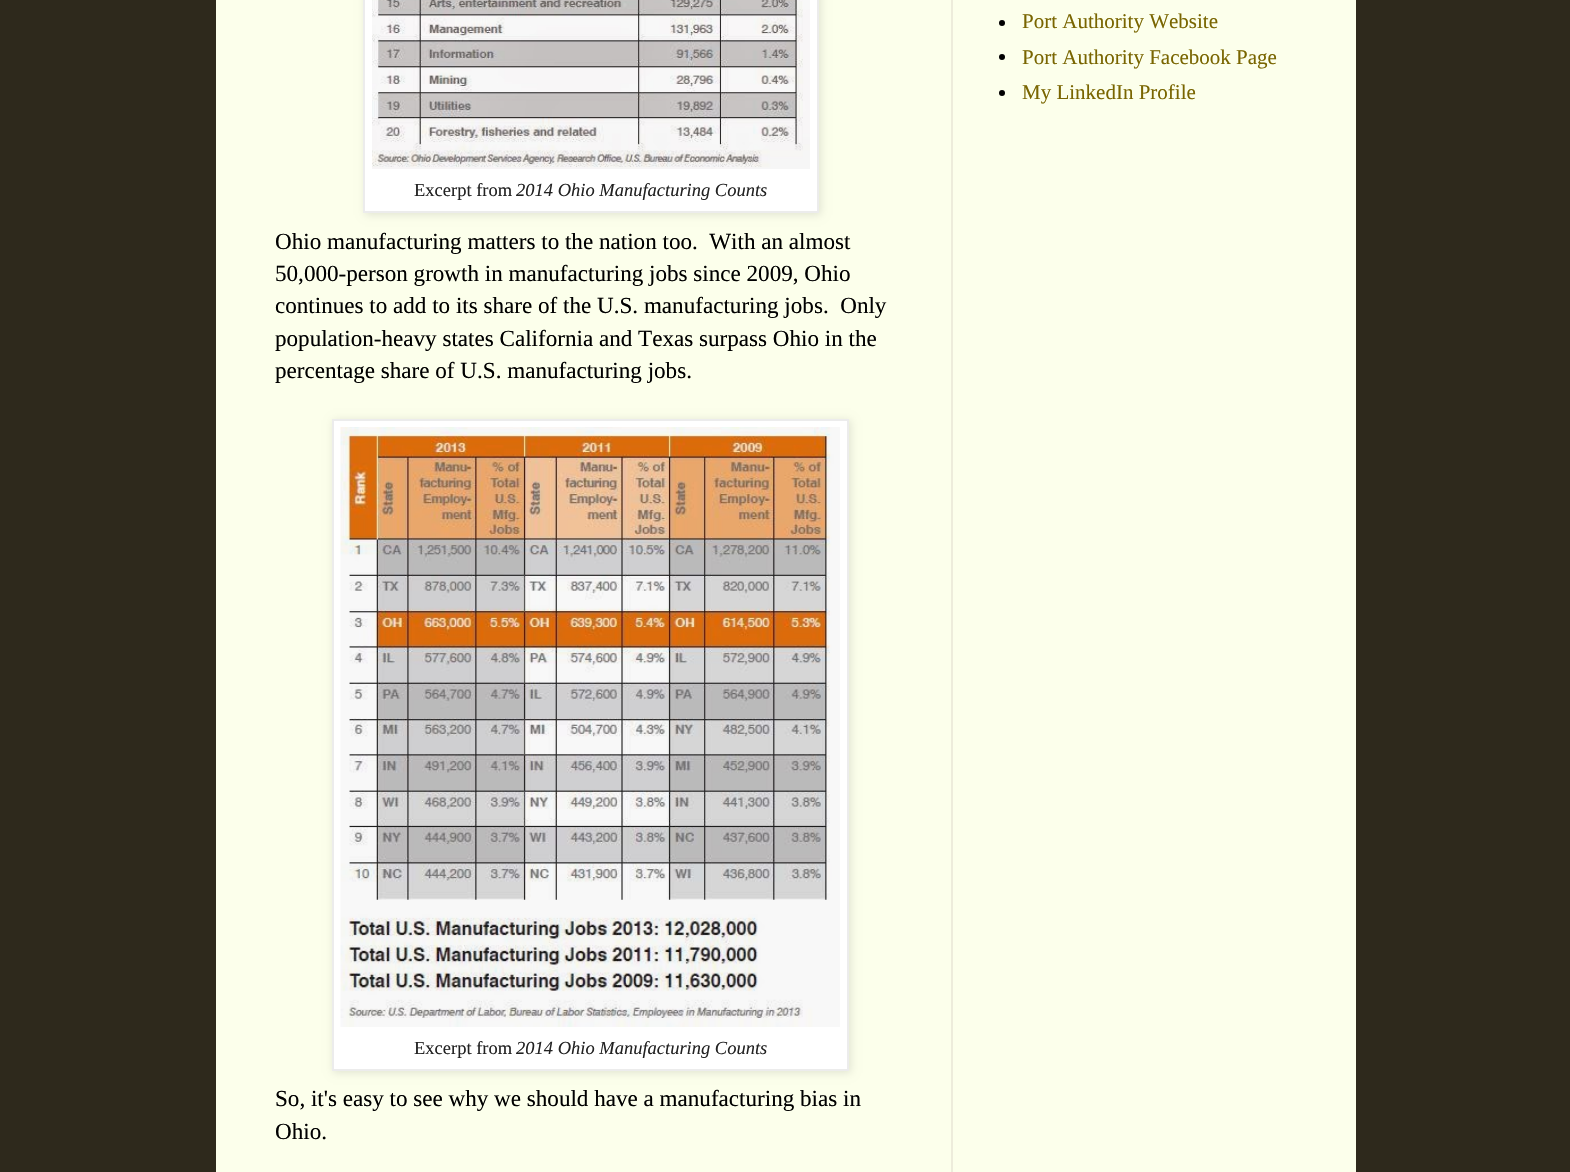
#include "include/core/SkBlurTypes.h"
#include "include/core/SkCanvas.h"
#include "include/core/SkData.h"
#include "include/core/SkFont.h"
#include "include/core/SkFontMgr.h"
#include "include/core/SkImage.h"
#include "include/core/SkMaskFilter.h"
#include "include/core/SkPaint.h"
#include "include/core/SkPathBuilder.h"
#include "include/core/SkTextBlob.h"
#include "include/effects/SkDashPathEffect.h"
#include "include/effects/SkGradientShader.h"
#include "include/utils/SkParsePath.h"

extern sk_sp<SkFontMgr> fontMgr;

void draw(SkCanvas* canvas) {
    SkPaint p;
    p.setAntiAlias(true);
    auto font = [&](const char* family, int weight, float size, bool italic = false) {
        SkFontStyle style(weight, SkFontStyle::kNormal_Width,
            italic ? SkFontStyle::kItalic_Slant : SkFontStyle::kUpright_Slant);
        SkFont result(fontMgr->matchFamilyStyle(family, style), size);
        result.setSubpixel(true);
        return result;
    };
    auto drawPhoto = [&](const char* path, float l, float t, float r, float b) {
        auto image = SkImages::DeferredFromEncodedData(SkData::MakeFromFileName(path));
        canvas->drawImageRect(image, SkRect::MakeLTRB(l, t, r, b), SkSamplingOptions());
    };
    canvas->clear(0xFF2E291C);
    p.setColor(0xFFFCFFEB);
    canvas->drawRect(SkRect::MakeLTRB(216, 0, 1356, 1172), p);
    p.setColor(0xFFEDECDB);
    canvas->drawRect(SkRect::MakeLTRB(951, 0, 953, 1172), p);
    p.setColor(0xFF000000);
    canvas->drawCircle(1002, 23, 3, p);
    auto font1 = font("Liberation Serif", 400, 21);
    p.setColor(0xFF796500);
    canvas->drawString("Port Authority Website", 1022, 28, font1, p);
    p.setColor(0xFF000000);
    canvas->drawCircle(1002, 57, 3, p);
    p.setColor(0xFF796500);
    canvas->drawString("Port Authority Facebook Page", 1022, 64, font1, p);
    p.setColor(0xFF000000);
    canvas->drawCircle(1002, 93, 3, p);
    p.setColor(0xFF796500);
    canvas->drawString("My LinkedIn Profile", 1022, 99, font1, p);
    p.setColor(0x1A000000);
    p.setMaskFilter(SkMaskFilter::MakeBlur(kNormal_SkBlurStyle, 4));
    canvas->drawRect(SkRect::MakeLTRB(365, -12, 821, 215), p);
    p.setMaskFilter(nullptr);
    p.setColor(0xFFFFFFFF);
    canvas->drawRect(SkRect::MakeLTRB(364, -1, 818, 212), p);
    p.setStyle(SkPaint::kStroke_Style);
    p.setStrokeWidth(2);
    p.setColor(0xFFECECEC);
    canvas->drawRect(SkRect::MakeLTRB(364, -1, 818, 212), p);
    drawPhoto("media/1.png", 372, 0, 810, 169);
    auto font2 = font("Liberation Serif", 400, 18.5f);
    p.setStyle(SkPaint::kFill_Style);
    p.setColor(0xFF222222);
    canvas->drawString("Excerpt from", 414, 196, font2, p);
    auto font3 = font("Liberation Serif", 400, 18.5f, true);
    canvas->drawString("2014 Ohio Manufacturing Counts", 516, 196, font3, p);
    auto font4 = font("Liberation Serif", 400, 23.1f);
    p.setColor(0xFF000000);
    {
        const struct { const char* s; float x, y; } items[] = {
            {"Ohio manufacturing matters to the nation too.  With an almost", 275, 249},
            {"50,000-person growth in manufacturing jobs since 2009, Ohio", 275, 281},
            {"continues to add to its share of the U.S. manufacturing jobs.  Only", 275, 313},
            {"population-heavy states California and Texas surpass Ohio in the", 275, 346},
            {"percentage share of U.S. manufacturing jobs.", 275, 378},
        };
        for (auto [s, x, y] : items) {
            canvas->drawString(s, x, y, font4, p);
        }
    }
    p.setColor(0x1A000000);
    p.setMaskFilter(SkMaskFilter::MakeBlur(kNormal_SkBlurStyle, 4));
    canvas->drawRect(SkRect::MakeLTRB(333, 420, 851, 1073), p);
    p.setMaskFilter(nullptr);
    p.setColor(0xFFFFFFFF);
    canvas->drawRect(SkRect::MakeLTRB(333, 420, 848, 1070), p);
    p.setStyle(SkPaint::kStroke_Style);
    p.setColor(0xFFECECEC);
    canvas->drawRect(SkRect::MakeLTRB(333, 420, 848, 1070), p);
    drawPhoto("media/2.png", 340, 427, 840, 1027);
    p.setStyle(SkPaint::kFill_Style);
    p.setColor(0xFF222222);
    canvas->drawString("Excerpt from", 414, 1054, font2, p);
    canvas->drawString("2014 Ohio Manufacturing Counts", 516, 1054, font3, p);
    p.setColor(0xFF000000);
    canvas->drawString("So, it's easy to see why we should have a manufacturing bias in", 275, 1106, font4, p);
    canvas->drawString("Ohio.", 275, 1139, font4, p);
}
